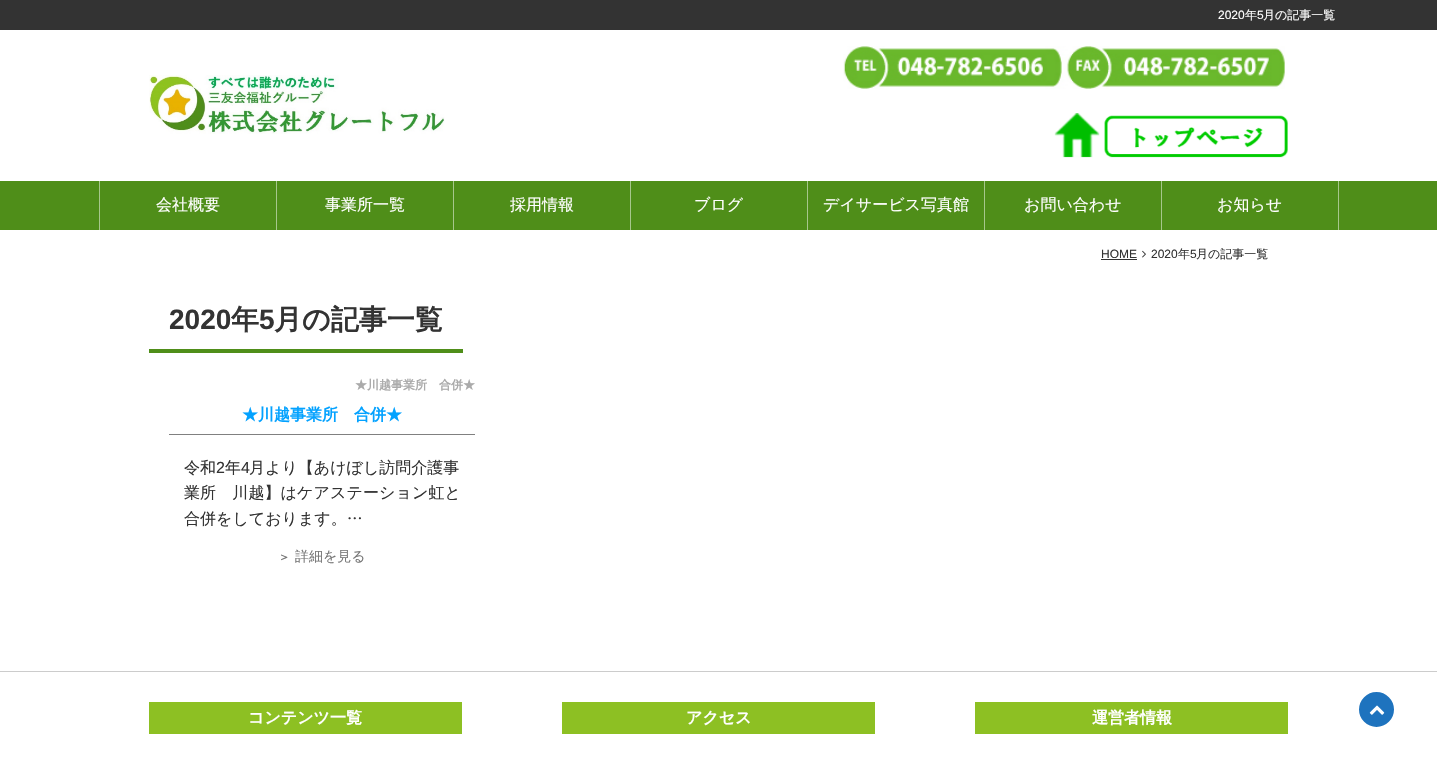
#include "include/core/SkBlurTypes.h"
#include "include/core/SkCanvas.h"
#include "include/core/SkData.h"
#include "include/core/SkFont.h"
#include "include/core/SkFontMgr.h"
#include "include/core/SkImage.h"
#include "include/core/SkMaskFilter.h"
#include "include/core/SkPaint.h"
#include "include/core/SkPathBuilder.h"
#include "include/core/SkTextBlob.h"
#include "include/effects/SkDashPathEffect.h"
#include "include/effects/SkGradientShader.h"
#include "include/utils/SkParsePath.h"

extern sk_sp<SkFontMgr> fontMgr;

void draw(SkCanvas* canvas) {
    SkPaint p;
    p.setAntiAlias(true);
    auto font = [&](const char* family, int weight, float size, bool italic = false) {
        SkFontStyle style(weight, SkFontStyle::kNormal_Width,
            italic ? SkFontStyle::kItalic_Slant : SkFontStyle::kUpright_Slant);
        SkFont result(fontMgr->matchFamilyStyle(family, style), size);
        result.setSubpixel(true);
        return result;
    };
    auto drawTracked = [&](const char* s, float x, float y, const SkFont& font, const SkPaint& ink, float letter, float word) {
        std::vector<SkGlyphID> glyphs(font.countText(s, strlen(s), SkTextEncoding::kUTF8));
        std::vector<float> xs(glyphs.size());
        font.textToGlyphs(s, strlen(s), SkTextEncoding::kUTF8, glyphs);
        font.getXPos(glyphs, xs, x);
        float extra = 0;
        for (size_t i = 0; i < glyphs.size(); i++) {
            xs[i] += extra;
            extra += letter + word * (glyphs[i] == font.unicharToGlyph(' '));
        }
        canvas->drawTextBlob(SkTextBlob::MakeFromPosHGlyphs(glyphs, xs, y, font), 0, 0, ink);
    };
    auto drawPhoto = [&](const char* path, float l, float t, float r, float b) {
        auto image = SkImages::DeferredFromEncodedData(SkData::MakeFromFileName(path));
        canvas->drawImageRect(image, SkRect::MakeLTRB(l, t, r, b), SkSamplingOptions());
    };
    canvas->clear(0xFFFFFFFF);
    p.setColor(0xFF333333);
    canvas->drawRect(SkRect::MakeLTRB(0, 0, 1437, 30), p);
    auto font1 = font("Liberation Sans", 400, 12);
    p.setColor(0xFFFFFFFF);
    canvas->drawString("2020", 1218, 19, font1, p);
    auto font2 = font("WenQuanYi Zen Hei", 500, 12);
    canvas->drawString("年", 1245, 19, font2, p);
    canvas->drawString("5", 1257, 19, font1, p);
    canvas->drawString("月の記事一覧", 1263, 19, font2, p);
    drawPhoto("media/1.png", 149, 75, 445, 134);
    drawPhoto("media/2.png", 843, 46, 1285, 89);
    drawPhoto("media/3.png", 1054, 113, 1288, 158);
    {
        const struct { float l, t, r, b; SkColor color; } items[] = {
            {0, 181, 1437, 230, 0xFF4F8E19},
            {276, 181, 277, 230, 0xFFA7C78C},
            {99, 181, 100, 230, 0xFFA7C78C},
        };
        for (auto [l, t, r, b, color] : items) {
            p.setColor(color);
            canvas->drawRect(SkRect::MakeLTRB(l, t, r, b), p);
        }
    }
    auto font3 = font("WenQuanYi Zen Hei", 500, 16);
    p.setColor(0xFFFFFFFF);
    canvas->drawString("会社概要", 156, 210, font3, p);
    p.setColor(0xFFA7C78C);
    canvas->drawRect(SkRect::MakeLTRB(453, 181, 454, 230), p);
    p.setColor(0xFFFFFFFF);
    canvas->drawString("事業所一覧", 325, 210, font3, p);
    p.setColor(0xFFA7C78C);
    canvas->drawRect(SkRect::MakeLTRB(630, 181, 631, 230), p);
    p.setColor(0xFFFFFFFF);
    canvas->drawString("採用情報", 510, 210, font3, p);
    p.setColor(0xFFA7C78C);
    canvas->drawRect(SkRect::MakeLTRB(807, 181, 808, 230), p);
    p.setColor(0xFFFFFFFF);
    canvas->drawString("ブログ", 694, 210, font3, p);
    p.setColor(0xFFA7C78C);
    canvas->drawRect(SkRect::MakeLTRB(984, 181, 985, 230), p);
    p.setColor(0xFFFFFFFF);
    canvas->drawString("デイサービス写真館", 823, 210, font3, p);
    p.setColor(0xFFA7C78C);
    canvas->drawRect(SkRect::MakeLTRB(1161, 181, 1162, 230), p);
    p.setColor(0xFFFFFFFF);
    canvas->drawString("お問い合わせ", 1024, 210, font3, p);
    p.setColor(0xFFA7C78C);
    canvas->drawRect(SkRect::MakeLTRB(1338, 181, 1339, 230), p);
    p.setColor(0xFFFFFFFF);
    canvas->drawString("お知らせ", 1217, 210, font3, p);
    p.setColor(0xFF333333);
    canvas->drawString("HOME", 1101, 258, font1, p);
    canvas->drawRect(SkRect::MakeLTRB(1101, 259, 1137, 260), p);
    drawPhoto("media/4.png", 1142, 250, 1146, 258);
    canvas->drawString("2020", 1151, 258, font1, p);
    canvas->drawString("年", 1178, 258, font2, p);
    canvas->drawString("5", 1190, 258, font1, p);
    canvas->drawString("月の記事一覧", 1196, 258, font2, p);
    p.setColor(0xFF4F8E19);
    canvas->drawRect(SkRect::MakeLTRB(149, 349, 463, 353), p);
    auto font4 = font("Liberation Sans", 700, 28);
    p.setColor(0xFF333333);
    canvas->drawString("2020", 169, 329, font4, p);
    auto font5 = font("WenQuanYi Zen Hei", 700, 28);
    canvas->drawString("年", 231, 329, font5, p);
    canvas->drawString("5", 259, 329, font4, p);
    canvas->drawString("月の記事一覧", 274, 329, font5, p);
    auto font6 = font("WenQuanYi Zen Hei", 700, 12);
    p.setColor(0xFFAAAAAA);
    canvas->drawString("★川越事業所　合併★", 355, 389, font6, p);
    p.setColor(0xFF808080);
    canvas->drawRect(SkRect::MakeLTRB(169, 434, 475, 435), p);
    auto font7 = font("WenQuanYi Zen Hei", 700, 16);
    p.setColor(0xFF03A2FF);
    canvas->drawString("★川越事業所　合併★", 242, 420, font7, p);
    p.setColor(0xFF333333);
    canvas->drawString("令和", 184, 473, font3, p);
    auto font8 = font("Liberation Sans", 400, 16);
    canvas->drawString("2", 216, 473, font8, p);
    canvas->drawString("年", 225, 473, font3, p);
    canvas->drawString("4", 241, 473, font8, p);
    canvas->drawString("月より【あけぼし訪問介護事", 249, 473, font3, p);
    drawTracked("業所　川越】はケアステーション虹と", 184, 498, font3, p, 0.1f, 0);
    canvas->drawString("合併をしております。…", 184, 524, font3, p);
    p.setColor(0xFF777777);
    canvas->drawString("＞", 278, 561, font6, p);
    auto font9 = font("WenQuanYi Zen Hei", 500, 14);
    canvas->drawString("詳細を見る", 295, 561, font9, p);
    p.setColor(0xFFCCCCCC);
    canvas->drawRect(SkRect::MakeLTRB(0, 671, 1437, 672), p);
    p.setColor(0xFF8DC023);
    canvas->drawRect(SkRect::MakeLTRB(149, 702, 462, 734), p);
    p.setColor(0xFFFFFFFF);
    canvas->drawString("コンテンツ一覧", 248, 723, font7, p);
    p.setColor(0xFF8DC023);
    canvas->drawRect(SkRect::MakeLTRB(562, 702, 875, 734), p);
    p.setColor(0xFFFFFFFF);
    canvas->drawString("アクセス", 686, 723, font7, p);
    p.setColor(0xFF8DC023);
    canvas->drawRect(SkRect::MakeLTRB(975, 702, 1288, 734), p);
    p.setColor(0xFFFFFFFF);
    canvas->drawString("運営者情報", 1092, 723, font7, p);
    p.setColor(0xFF1E73BE);
    canvas->drawCircle(1376.5f, 709.5f, 19, p);
    p.setStyle(SkPaint::kStroke_Style);
    p.setStrokeWidth(3);
    p.setColor(0xFFFFFFFF);
    canvas->drawCircle(1376.5f, 709.5f, 19, p);
    drawPhoto("media/5.png", 1369, 705, 1385, 715);
}
